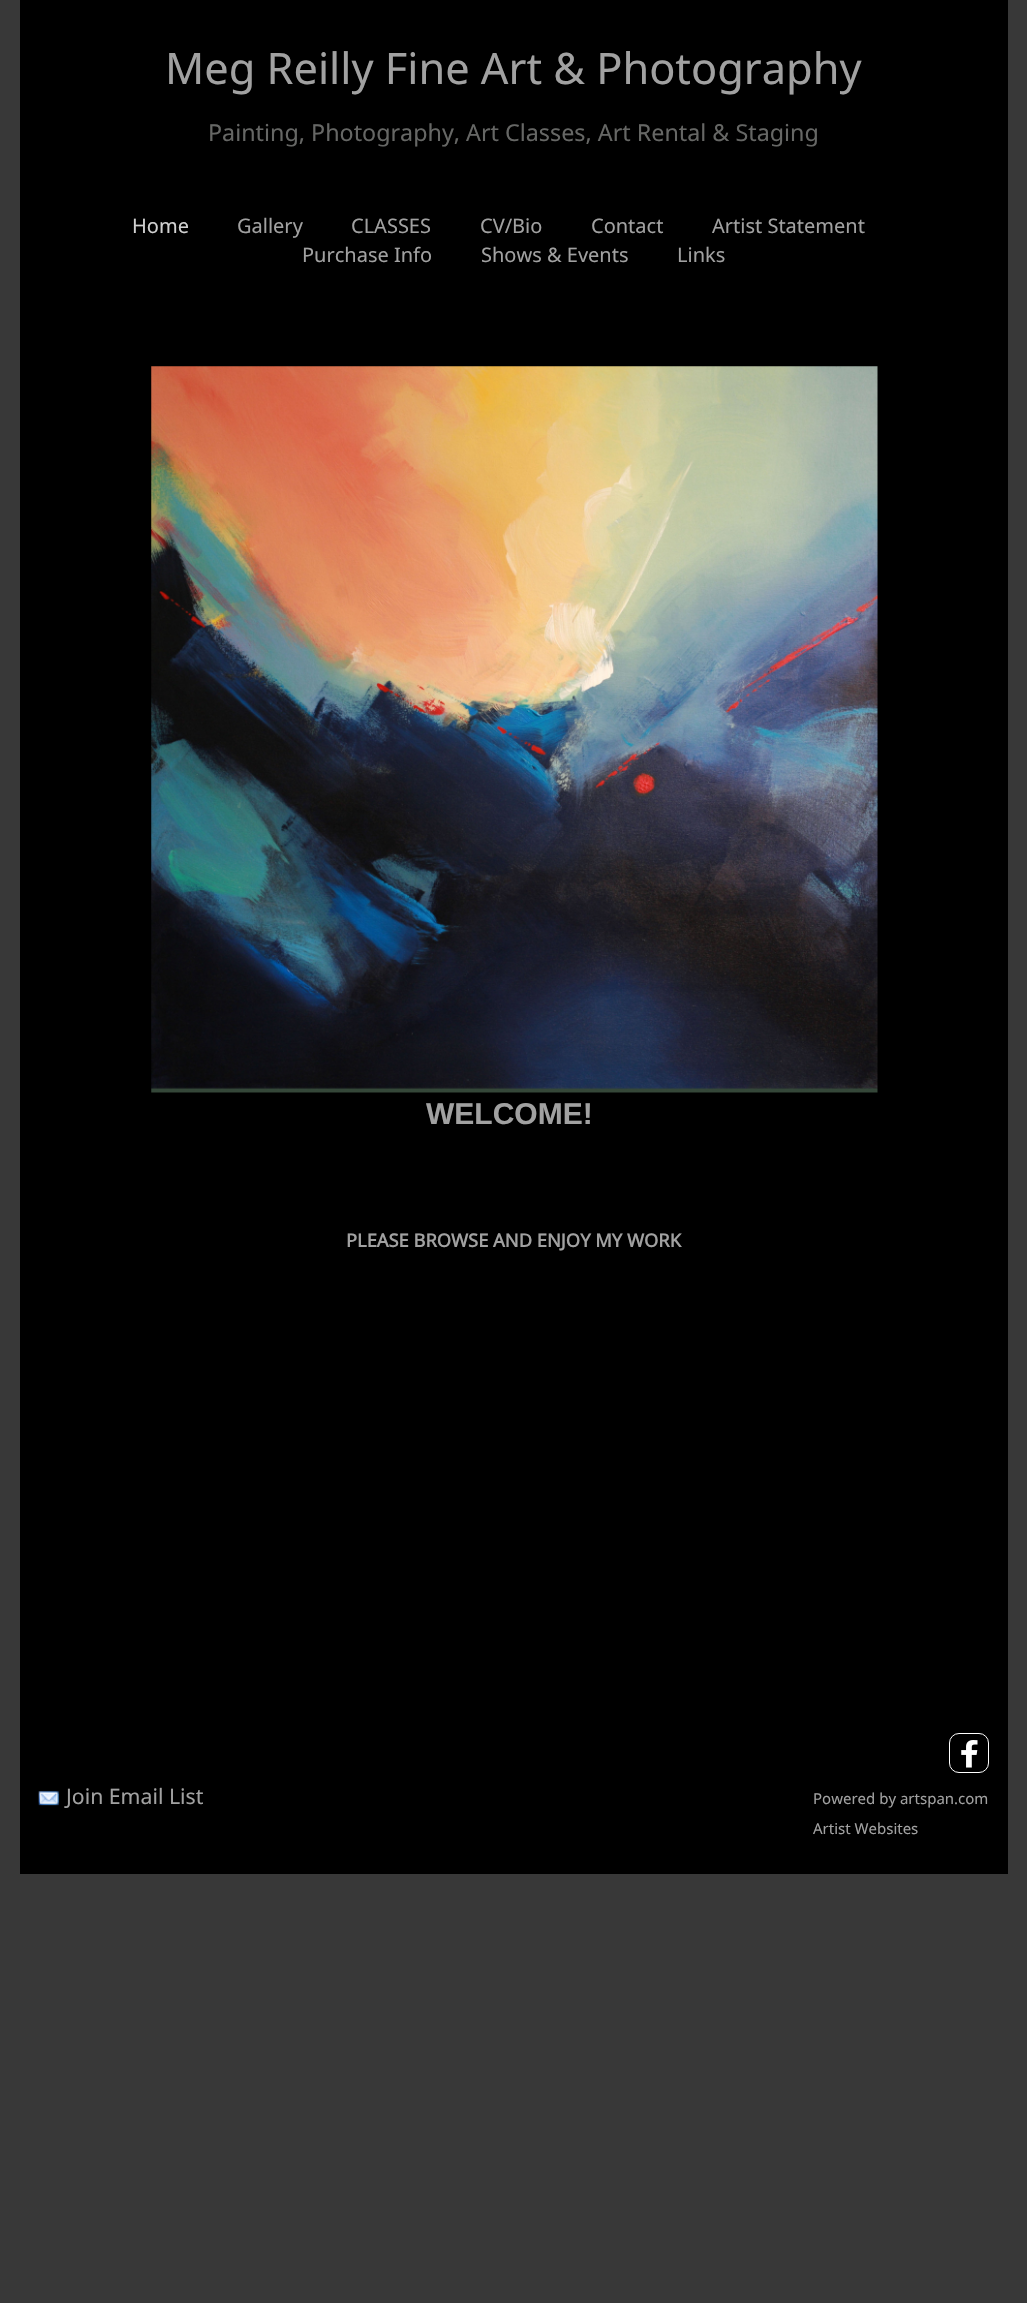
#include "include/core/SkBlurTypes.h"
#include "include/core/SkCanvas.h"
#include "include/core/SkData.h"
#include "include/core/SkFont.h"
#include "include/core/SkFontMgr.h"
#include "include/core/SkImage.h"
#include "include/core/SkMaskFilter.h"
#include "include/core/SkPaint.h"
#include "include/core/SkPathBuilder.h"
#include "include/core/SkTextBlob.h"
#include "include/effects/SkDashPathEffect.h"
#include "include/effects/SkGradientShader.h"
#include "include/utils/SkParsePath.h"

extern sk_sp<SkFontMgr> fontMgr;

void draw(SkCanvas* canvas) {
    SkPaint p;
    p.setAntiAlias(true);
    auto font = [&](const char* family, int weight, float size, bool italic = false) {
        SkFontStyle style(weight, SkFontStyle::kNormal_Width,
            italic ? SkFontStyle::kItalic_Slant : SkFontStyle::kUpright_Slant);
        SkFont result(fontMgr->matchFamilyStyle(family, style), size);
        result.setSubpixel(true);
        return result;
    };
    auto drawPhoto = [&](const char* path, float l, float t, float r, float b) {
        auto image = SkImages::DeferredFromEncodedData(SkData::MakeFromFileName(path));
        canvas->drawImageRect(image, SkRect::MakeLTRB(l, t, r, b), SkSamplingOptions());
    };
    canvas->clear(0xFF383838);
    p.setColor(0xFF000000);
    canvas->drawRect(SkRect::MakeLTRB(20, 0, 1008, 1874), p);
    auto font1 = font("Noto Sans", 400, 43.3f);
    p.setColor(0xFFA1A1A1);
    canvas->drawString("Meg Reilly Fine Art & Photography", 165, 84, font1, p);
    auto font2 = font("Noto Sans", 400, 23.3f);
    p.setColor(0xFF666765);
    canvas->drawString("Painting, Photography, Art Classes, Art Rental & Staging", 208, 141, font2, p);
    auto font3 = font("Noto Sans", 400, 20);
    p.setColor(0xFFD1D1D1);
    canvas->drawString("Home", 132, 233, font3, p);
    p.setColor(0xFFA1A1A1);
    {
        const struct { const char* s; float x, y; } items[] = {
            {"Gallery", 237, 233},
            {"CLASSES", 351, 233},
            {"CV/Bio", 480, 233},
            {"Contact", 591, 233},
            {"Artist Statement", 712, 233},
            {"Purchase Info", 302, 262},
            {"Shows & Events", 481, 262},
            {"Links", 677, 262},
        };
        for (auto [s, x, y] : items) {
            canvas->drawString(s, x, y, font3, p);
        }
    }
    drawPhoto("media/1.png", 151, 366, 878, 1093);
    auto font4 = font("Liberation Sans", 700, 30);
    canvas->drawString("WELCOME!", 426, 1124, font4, p);
    auto font5 = font("Noto Sans", 700, 18.3f);
    canvas->drawString("PLEASE BROWSE AND ENJOY MY WORK", 346, 1247, font5, p);
    p.setStyle(SkPaint::kStroke_Style);
    p.setStrokeWidth(1);
    p.setColor(0xFFFFFFFF);
    canvas->drawRoundRect(SkRect::MakeLTRB(949.5f, 1733.5f, 988.5f, 1772.5f), 9.5f, 9.5f, p);
    drawPhoto("media/2.png", 961, 1740, 978, 1768);
    drawPhoto("media/3.png", 38, 1791, 59, 1806);
    auto font6 = font("Noto Sans", 400, 21.25f);
    p.setStyle(SkPaint::kFill_Style);
    p.setColor(0xFFA1A1A1);
    canvas->drawString("Join Email List", 66, 1804, font6, p);
    auto font7 = font("Noto Sans", 400, 15);
    canvas->drawString("Powered by artspan.com", 813, 1804, font7, p);
    canvas->drawString("Artist Websites", 813, 1834, font7, p);
}
